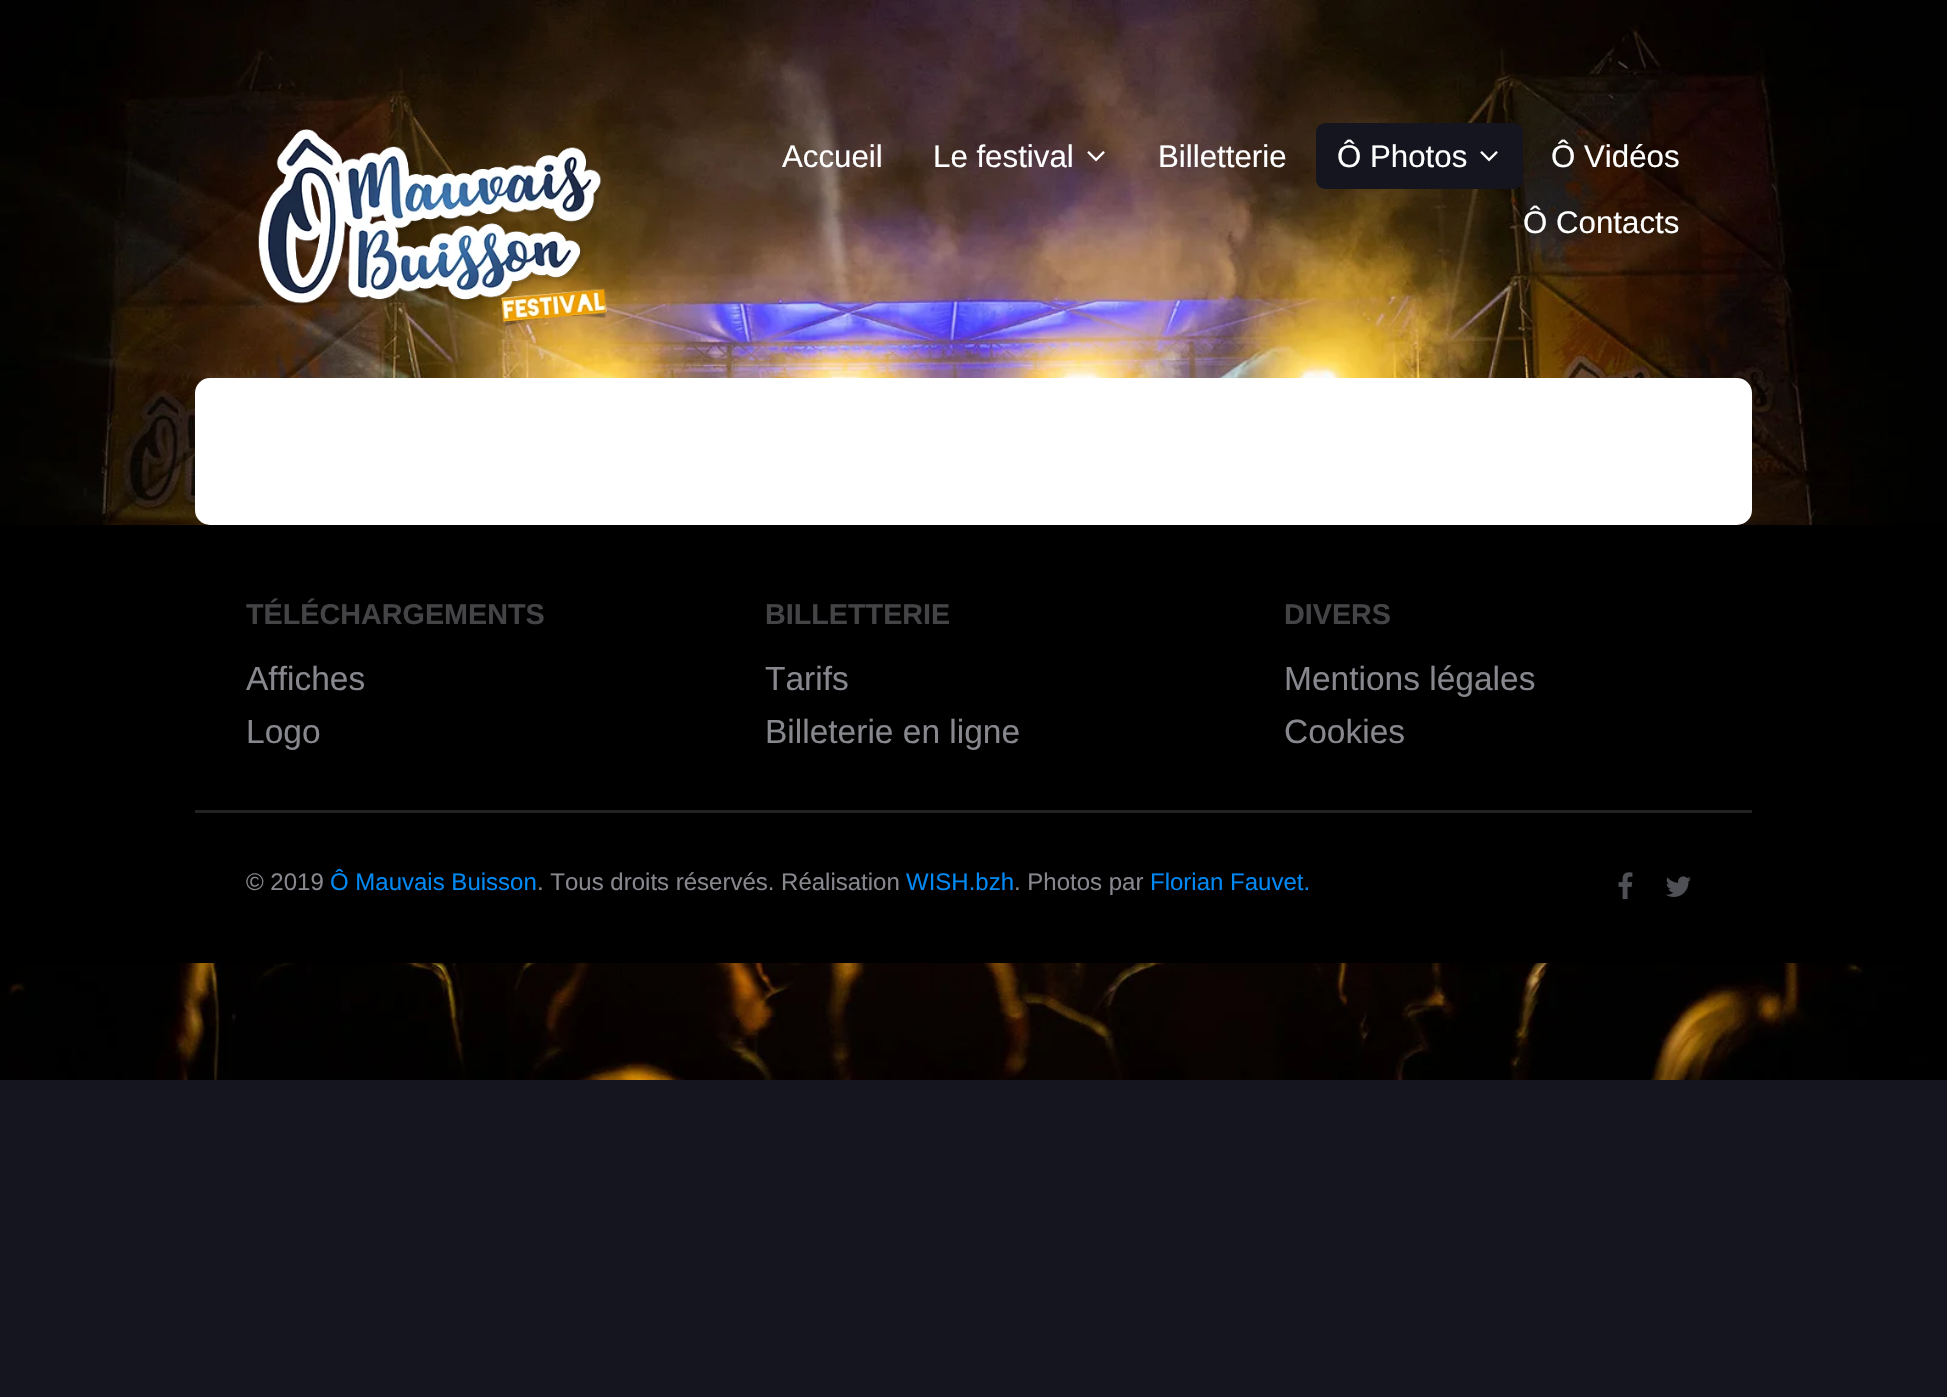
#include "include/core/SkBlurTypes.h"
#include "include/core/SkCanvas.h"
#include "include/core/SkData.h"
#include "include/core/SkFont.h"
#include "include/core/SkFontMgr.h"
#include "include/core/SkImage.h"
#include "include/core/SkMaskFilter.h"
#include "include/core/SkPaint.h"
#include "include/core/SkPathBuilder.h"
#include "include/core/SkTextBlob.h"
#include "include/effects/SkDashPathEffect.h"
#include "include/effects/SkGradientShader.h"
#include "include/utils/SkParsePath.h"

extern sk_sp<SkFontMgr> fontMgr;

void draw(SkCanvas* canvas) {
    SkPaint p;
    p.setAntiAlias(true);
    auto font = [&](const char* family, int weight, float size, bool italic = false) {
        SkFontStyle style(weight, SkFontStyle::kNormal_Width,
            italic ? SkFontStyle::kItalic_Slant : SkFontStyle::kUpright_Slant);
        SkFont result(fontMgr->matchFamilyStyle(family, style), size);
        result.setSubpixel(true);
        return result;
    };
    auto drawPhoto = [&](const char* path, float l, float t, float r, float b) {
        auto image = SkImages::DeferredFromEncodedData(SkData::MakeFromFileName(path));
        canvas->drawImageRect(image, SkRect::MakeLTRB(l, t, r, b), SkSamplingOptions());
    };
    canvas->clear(0xFF14151E);
    drawPhoto("media/1.png", 0, 0, 1947, 1080);
    drawPhoto("media/2.png", 258, 129, 608, 327);
    auto font1 = font("Liberation Sans", 400, 31.25f);
    p.setColor(0xFFFFFFFF);
    canvas->drawString("Accueil", 782, 167, font1, p);
    canvas->drawString("Le festival", 933, 167, font1, p);
    drawPhoto("media/3.png", 1087, 151, 1105, 162);
    canvas->drawString("Billetterie", 1158, 167, font1, p);
    p.setColor(0xFF14151E);
    canvas->drawRoundRect(SkRect::MakeLTRB(1316, 123, 1523, 189), 9, 9, p);
    p.setColor(0xFFFFFFFF);
    canvas->drawString("Ô Photos", 1337, 167, font1, p);
    drawPhoto("media/4.png", 1480, 151, 1498, 162);
    canvas->drawString("Ô Vidéos", 1551, 167, font1, p);
    canvas->drawString("Ô Contacts", 1523, 233, font1, p);
    canvas->drawRoundRect(SkRect::MakeLTRB(195, 378, 1752, 525), 15, 15, p);
    p.setColor(0xFF000000);
    canvas->drawRect(SkRect::MakeLTRB(0, 525, 1947, 963), p);
    p.setColor(0xFF222224);
    canvas->drawRect(SkRect::MakeLTRB(195, 810, 1752, 813), p);
    auto font2 = font("Liberation Sans", 700, 28.75f);
    p.setColor(0xFF444447);
    canvas->drawString("TÉLÉCHARGEMENTS", 246, 624, font2, p);
    auto font3 = font("Liberation Sans", 400, 33.5f);
    p.setColor(0xFF87888E);
    canvas->drawString("Affiches", 246, 690, font3, p);
    canvas->drawString("Logo", 246, 743, font3, p);
    p.setColor(0xFF444447);
    canvas->drawString("BILLETTERIE", 765, 624, font2, p);
    p.setColor(0xFF87888E);
    canvas->drawString("Tarifs", 765, 690, font3, p);
    canvas->drawString("Billeterie en ligne", 765, 743, font3, p);
    p.setColor(0xFF444447);
    canvas->drawString("DIVERS", 1284, 624, font2, p);
    p.setColor(0xFF87888E);
    canvas->drawString("Mentions légales", 1284, 690, font3, p);
    canvas->drawString("Cookies", 1284, 743, font3, p);
    auto font4 = font("Liberation Sans", 400, 24);
    canvas->drawString("© 2019", 246, 890, font4, p);
    p.setColor(0xFF0088F3);
    canvas->drawString("Ô Mauvais Buisson", 330, 890, font4, p);
    p.setColor(0xFF87888E);
    canvas->drawString(". Tous droits réservés. Réalisation", 537, 890, font4, p);
    p.setColor(0xFF0088F3);
    canvas->drawString("WISH.bzh", 906, 890, font4, p);
    p.setColor(0xFF87888E);
    canvas->drawString(". Photos par", 1014, 890, font4, p);
    p.setColor(0xFF0088F3);
    canvas->drawString("Florian Fauvet.", 1150, 890, font4, p);
    drawPhoto("media/5.png", 1618, 872, 1633, 900);
    drawPhoto("media/6.png", 1666, 876, 1691, 897);
}
